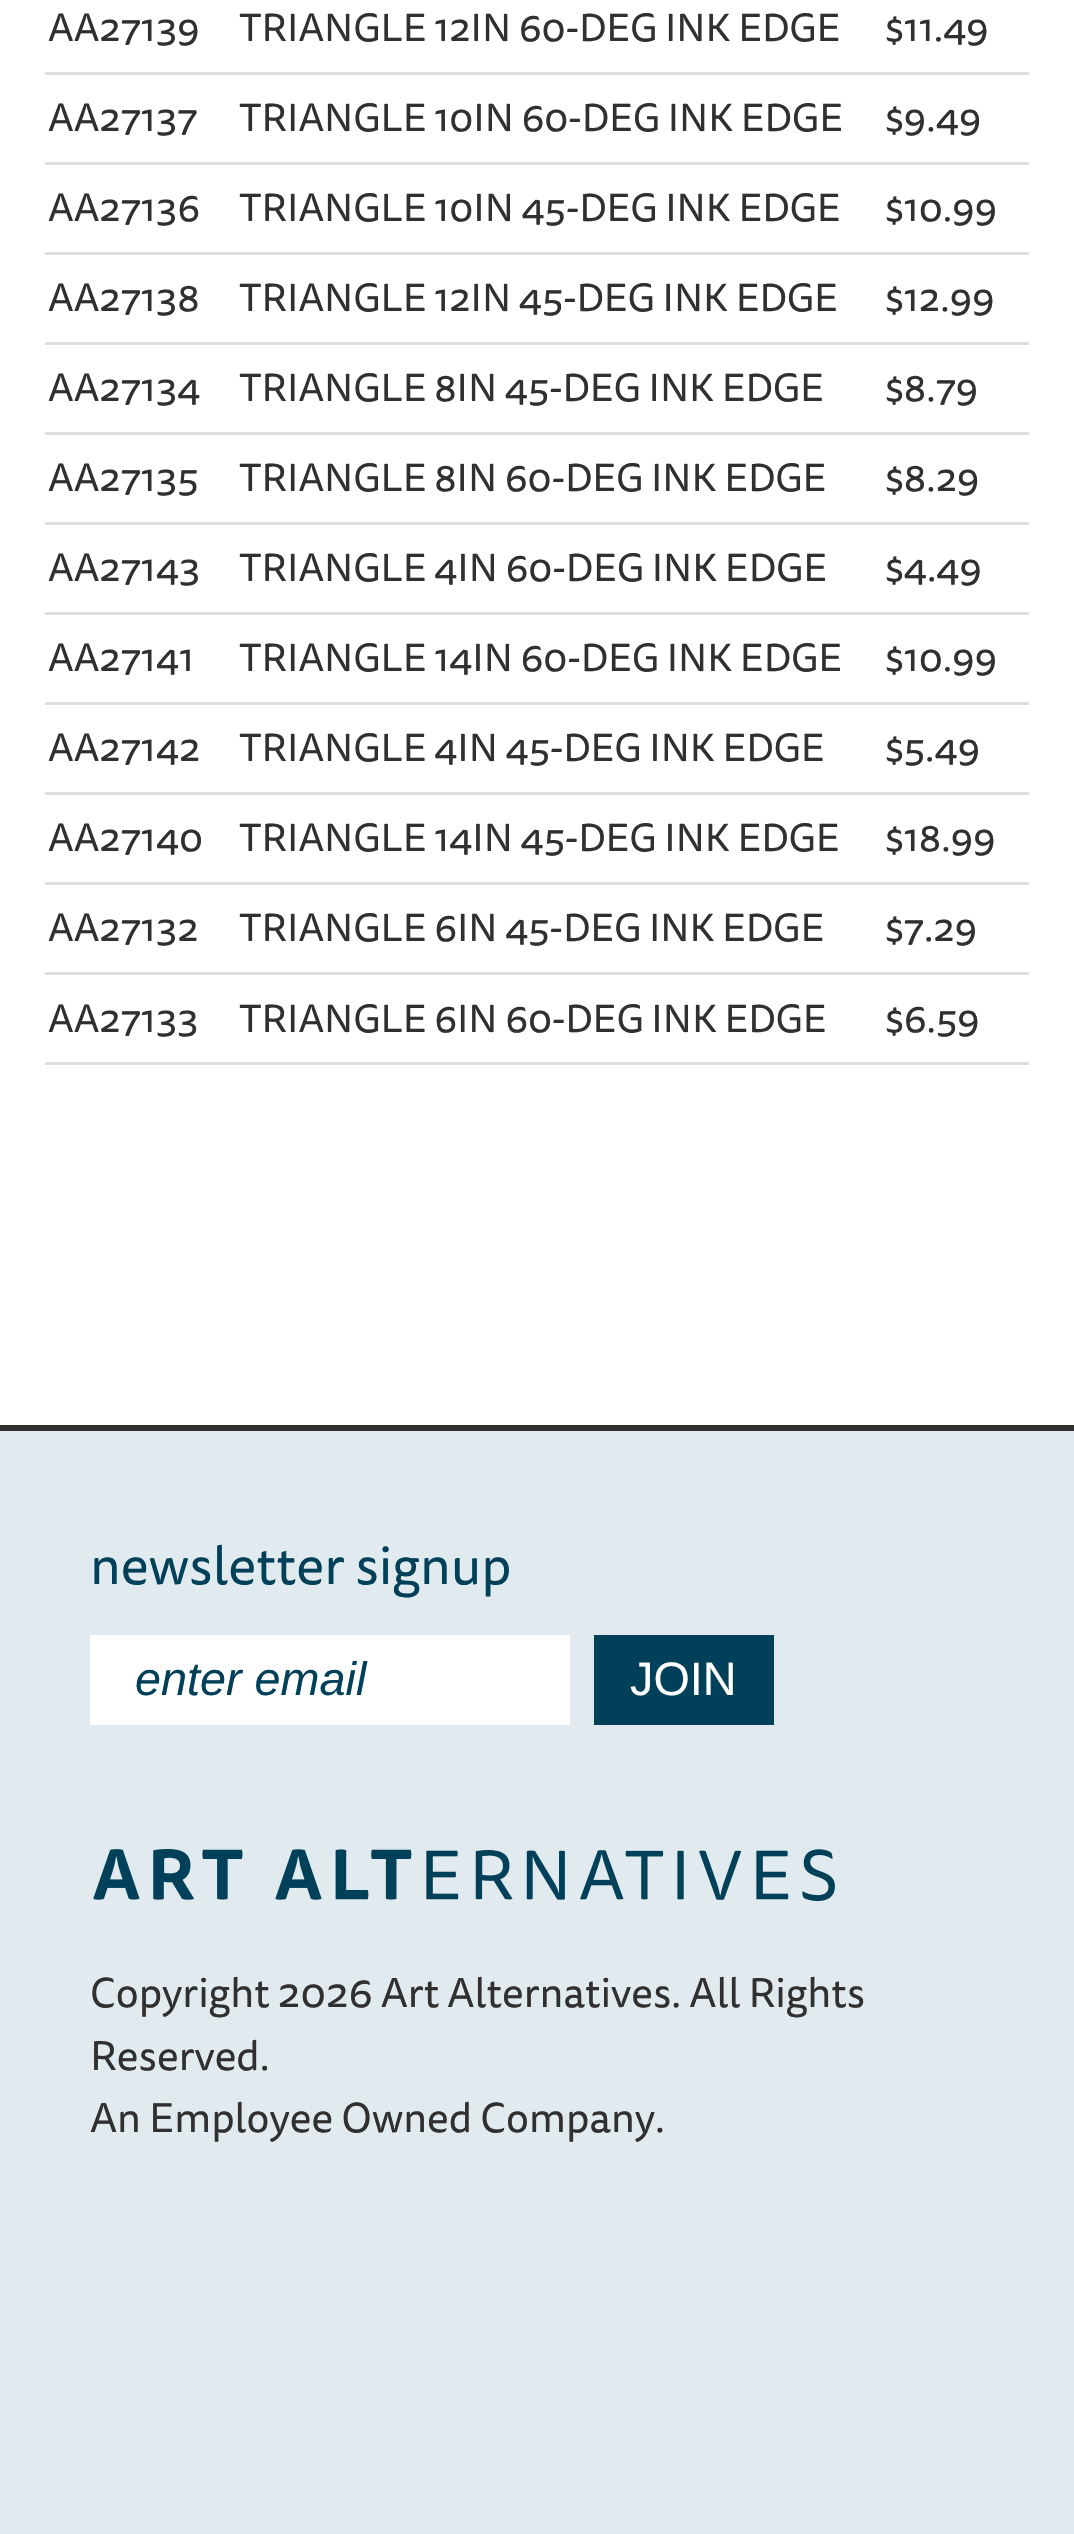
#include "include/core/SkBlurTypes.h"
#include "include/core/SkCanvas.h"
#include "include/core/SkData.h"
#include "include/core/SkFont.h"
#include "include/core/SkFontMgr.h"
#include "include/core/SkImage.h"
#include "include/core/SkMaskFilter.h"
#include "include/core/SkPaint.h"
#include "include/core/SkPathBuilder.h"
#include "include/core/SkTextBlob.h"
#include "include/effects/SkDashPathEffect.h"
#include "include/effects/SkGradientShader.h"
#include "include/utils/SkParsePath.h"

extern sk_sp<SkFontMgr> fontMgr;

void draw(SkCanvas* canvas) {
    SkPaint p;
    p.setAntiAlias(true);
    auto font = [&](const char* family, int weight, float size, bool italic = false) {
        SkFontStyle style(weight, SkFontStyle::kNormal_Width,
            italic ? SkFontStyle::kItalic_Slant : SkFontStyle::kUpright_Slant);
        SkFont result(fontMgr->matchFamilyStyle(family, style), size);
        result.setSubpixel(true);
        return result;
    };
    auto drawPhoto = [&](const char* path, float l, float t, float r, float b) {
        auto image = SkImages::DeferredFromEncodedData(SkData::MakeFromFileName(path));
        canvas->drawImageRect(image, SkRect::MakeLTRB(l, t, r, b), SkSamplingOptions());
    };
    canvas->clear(0xFFE1EAEE);
    p.setColor(0xFFFFFFFF);
    canvas->drawRect(SkRect::MakeLTRB(0, 0, 1074, 1425), p);
    p.setColor(0xFFDEDEDE);
    canvas->drawRect(SkRect::MakeLTRB(45, 72, 1029, 75), p);
    auto font1 = font("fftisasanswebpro", 400, 39.1f);
    p.setColor(0xFF303030);
    {
        const struct { const char* s; float x, y; } items[] = {
            {"AA27139", 48, 41},
            {"TRIANGLE 12IN 60-DEG INK EDGE", 239, 41},
            {"$11.49", 885, 41},
        };
        for (auto [s, x, y] : items) {
            canvas->drawString(s, x, y, font1, p);
        }
    }
    p.setColor(0xFFDEDEDE);
    canvas->drawRect(SkRect::MakeLTRB(45, 162, 1029, 165), p);
    p.setColor(0xFF303030);
    {
        const struct { const char* s; float x, y; } items[] = {
            {"AA27137", 48, 131},
            {"TRIANGLE 10IN 60-DEG INK EDGE", 239, 131},
            {"$9.49", 885, 131},
        };
        for (auto [s, x, y] : items) {
            canvas->drawString(s, x, y, font1, p);
        }
    }
    p.setColor(0xFFDEDEDE);
    canvas->drawRect(SkRect::MakeLTRB(45, 252, 1029, 255), p);
    p.setColor(0xFF303030);
    {
        const struct { const char* s; float x, y; } items[] = {
            {"AA27136", 48, 221},
            {"TRIANGLE 10IN 45-DEG INK EDGE", 239, 221},
            {"$10.99", 885, 221},
        };
        for (auto [s, x, y] : items) {
            canvas->drawString(s, x, y, font1, p);
        }
    }
    p.setColor(0xFFDEDEDE);
    canvas->drawRect(SkRect::MakeLTRB(45, 342, 1029, 345), p);
    p.setColor(0xFF303030);
    {
        const struct { const char* s; float x, y; } items[] = {
            {"AA27138", 48, 311},
            {"TRIANGLE 12IN 45-DEG INK EDGE", 239, 311},
            {"$12.99", 885, 311},
        };
        for (auto [s, x, y] : items) {
            canvas->drawString(s, x, y, font1, p);
        }
    }
    p.setColor(0xFFDEDEDE);
    canvas->drawRect(SkRect::MakeLTRB(45, 432, 1029, 435), p);
    p.setColor(0xFF303030);
    {
        const struct { const char* s; float x, y; } items[] = {
            {"AA27134", 48, 401},
            {"TRIANGLE 8IN 45-DEG INK EDGE", 239, 401},
            {"$8.79", 885, 401},
        };
        for (auto [s, x, y] : items) {
            canvas->drawString(s, x, y, font1, p);
        }
    }
    p.setColor(0xFFDEDEDE);
    canvas->drawRect(SkRect::MakeLTRB(45, 522, 1029, 525), p);
    p.setColor(0xFF303030);
    {
        const struct { const char* s; float x, y; } items[] = {
            {"AA27135", 48, 491},
            {"TRIANGLE 8IN 60-DEG INK EDGE", 239, 491},
            {"$8.29", 885, 491},
        };
        for (auto [s, x, y] : items) {
            canvas->drawString(s, x, y, font1, p);
        }
    }
    p.setColor(0xFFDEDEDE);
    canvas->drawRect(SkRect::MakeLTRB(45, 612, 1029, 615), p);
    p.setColor(0xFF303030);
    {
        const struct { const char* s; float x, y; } items[] = {
            {"AA27143", 48, 581},
            {"TRIANGLE 4IN 60-DEG INK EDGE", 239, 581},
            {"$4.49", 885, 581},
        };
        for (auto [s, x, y] : items) {
            canvas->drawString(s, x, y, font1, p);
        }
    }
    p.setColor(0xFFDEDEDE);
    canvas->drawRect(SkRect::MakeLTRB(45, 702, 1029, 705), p);
    p.setColor(0xFF303030);
    {
        const struct { const char* s; float x, y; } items[] = {
            {"AA27141", 48, 671},
            {"TRIANGLE 14IN 60-DEG INK EDGE", 239, 671},
            {"$10.99", 885, 671},
        };
        for (auto [s, x, y] : items) {
            canvas->drawString(s, x, y, font1, p);
        }
    }
    p.setColor(0xFFDEDEDE);
    canvas->drawRect(SkRect::MakeLTRB(45, 792, 1029, 795), p);
    p.setColor(0xFF303030);
    {
        const struct { const char* s; float x, y; } items[] = {
            {"AA27142", 48, 761},
            {"TRIANGLE 4IN 45-DEG INK EDGE", 239, 761},
            {"$5.49", 885, 761},
        };
        for (auto [s, x, y] : items) {
            canvas->drawString(s, x, y, font1, p);
        }
    }
    p.setColor(0xFFDEDEDE);
    canvas->drawRect(SkRect::MakeLTRB(45, 882, 1029, 885), p);
    p.setColor(0xFF303030);
    {
        const struct { const char* s; float x, y; } items[] = {
            {"AA27140", 48, 851},
            {"TRIANGLE 14IN 45-DEG INK EDGE", 239, 851},
            {"$18.99", 885, 851},
        };
        for (auto [s, x, y] : items) {
            canvas->drawString(s, x, y, font1, p);
        }
    }
    p.setColor(0xFFDEDEDE);
    canvas->drawRect(SkRect::MakeLTRB(45, 972, 1029, 975), p);
    p.setColor(0xFF303030);
    {
        const struct { const char* s; float x, y; } items[] = {
            {"AA27132", 48, 941},
            {"TRIANGLE 6IN 45-DEG INK EDGE", 239, 941},
            {"$7.29", 885, 941},
        };
        for (auto [s, x, y] : items) {
            canvas->drawString(s, x, y, font1, p);
        }
    }
    p.setColor(0xFFDEDEDE);
    canvas->drawRect(SkRect::MakeLTRB(45, 1062, 1029, 1065), p);
    p.setColor(0xFF303030);
    {
        const struct { const char* s; float x, y; } items[] = {
            {"AA27133", 48, 1032},
            {"TRIANGLE 6IN 60-DEG INK EDGE", 239, 1032},
            {"$6.59", 885, 1032},
        };
        for (auto [s, x, y] : items) {
            canvas->drawString(s, x, y, font1, p);
        }
    }
    canvas->drawRect(SkRect::MakeLTRB(0, 1425, 1074, 1431), p);
    auto font2 = font("fftisasanswebpro", 400, 53.25f);
    p.setColor(0xFF004159);
    canvas->drawString("newsletter signup", 90, 1584, font2, p);
    p.setColor(0xFFFFFFFF);
    canvas->drawRect(SkRect::MakeLTRB(90, 1635, 570, 1725), p);
    auto font3 = font("Liberation Sans", 400, 46.75f, true);
    p.setColor(0xFF004159);
    canvas->drawString("enter email", 135, 1695, font3, p);
    canvas->drawRect(SkRect::MakeLTRB(594, 1635, 774, 1725), p);
    auto font4 = font("Liberation Sans", 400, 46.75f);
    p.setColor(0xFFFFFFFF);
    canvas->drawString("JOIN", 630, 1695, font4, p);
    drawPhoto("media/1.png", 93, 1849, 835, 1901);
    auto font5 = font("fftisasanswebpro", 400, 41.3f);
    p.setColor(0xFF303030);
    {
        const struct { const char* s; float x, y; } items[] = {
            {"Copyright 2026 Art Alternatives. All Rights", 90, 2007},
            {"Reserved.", 90, 2070},
            {"An Employee Owned Company.", 90, 2132},
        };
        for (auto [s, x, y] : items) {
            canvas->drawString(s, x, y, font5, p);
        }
    }
}
